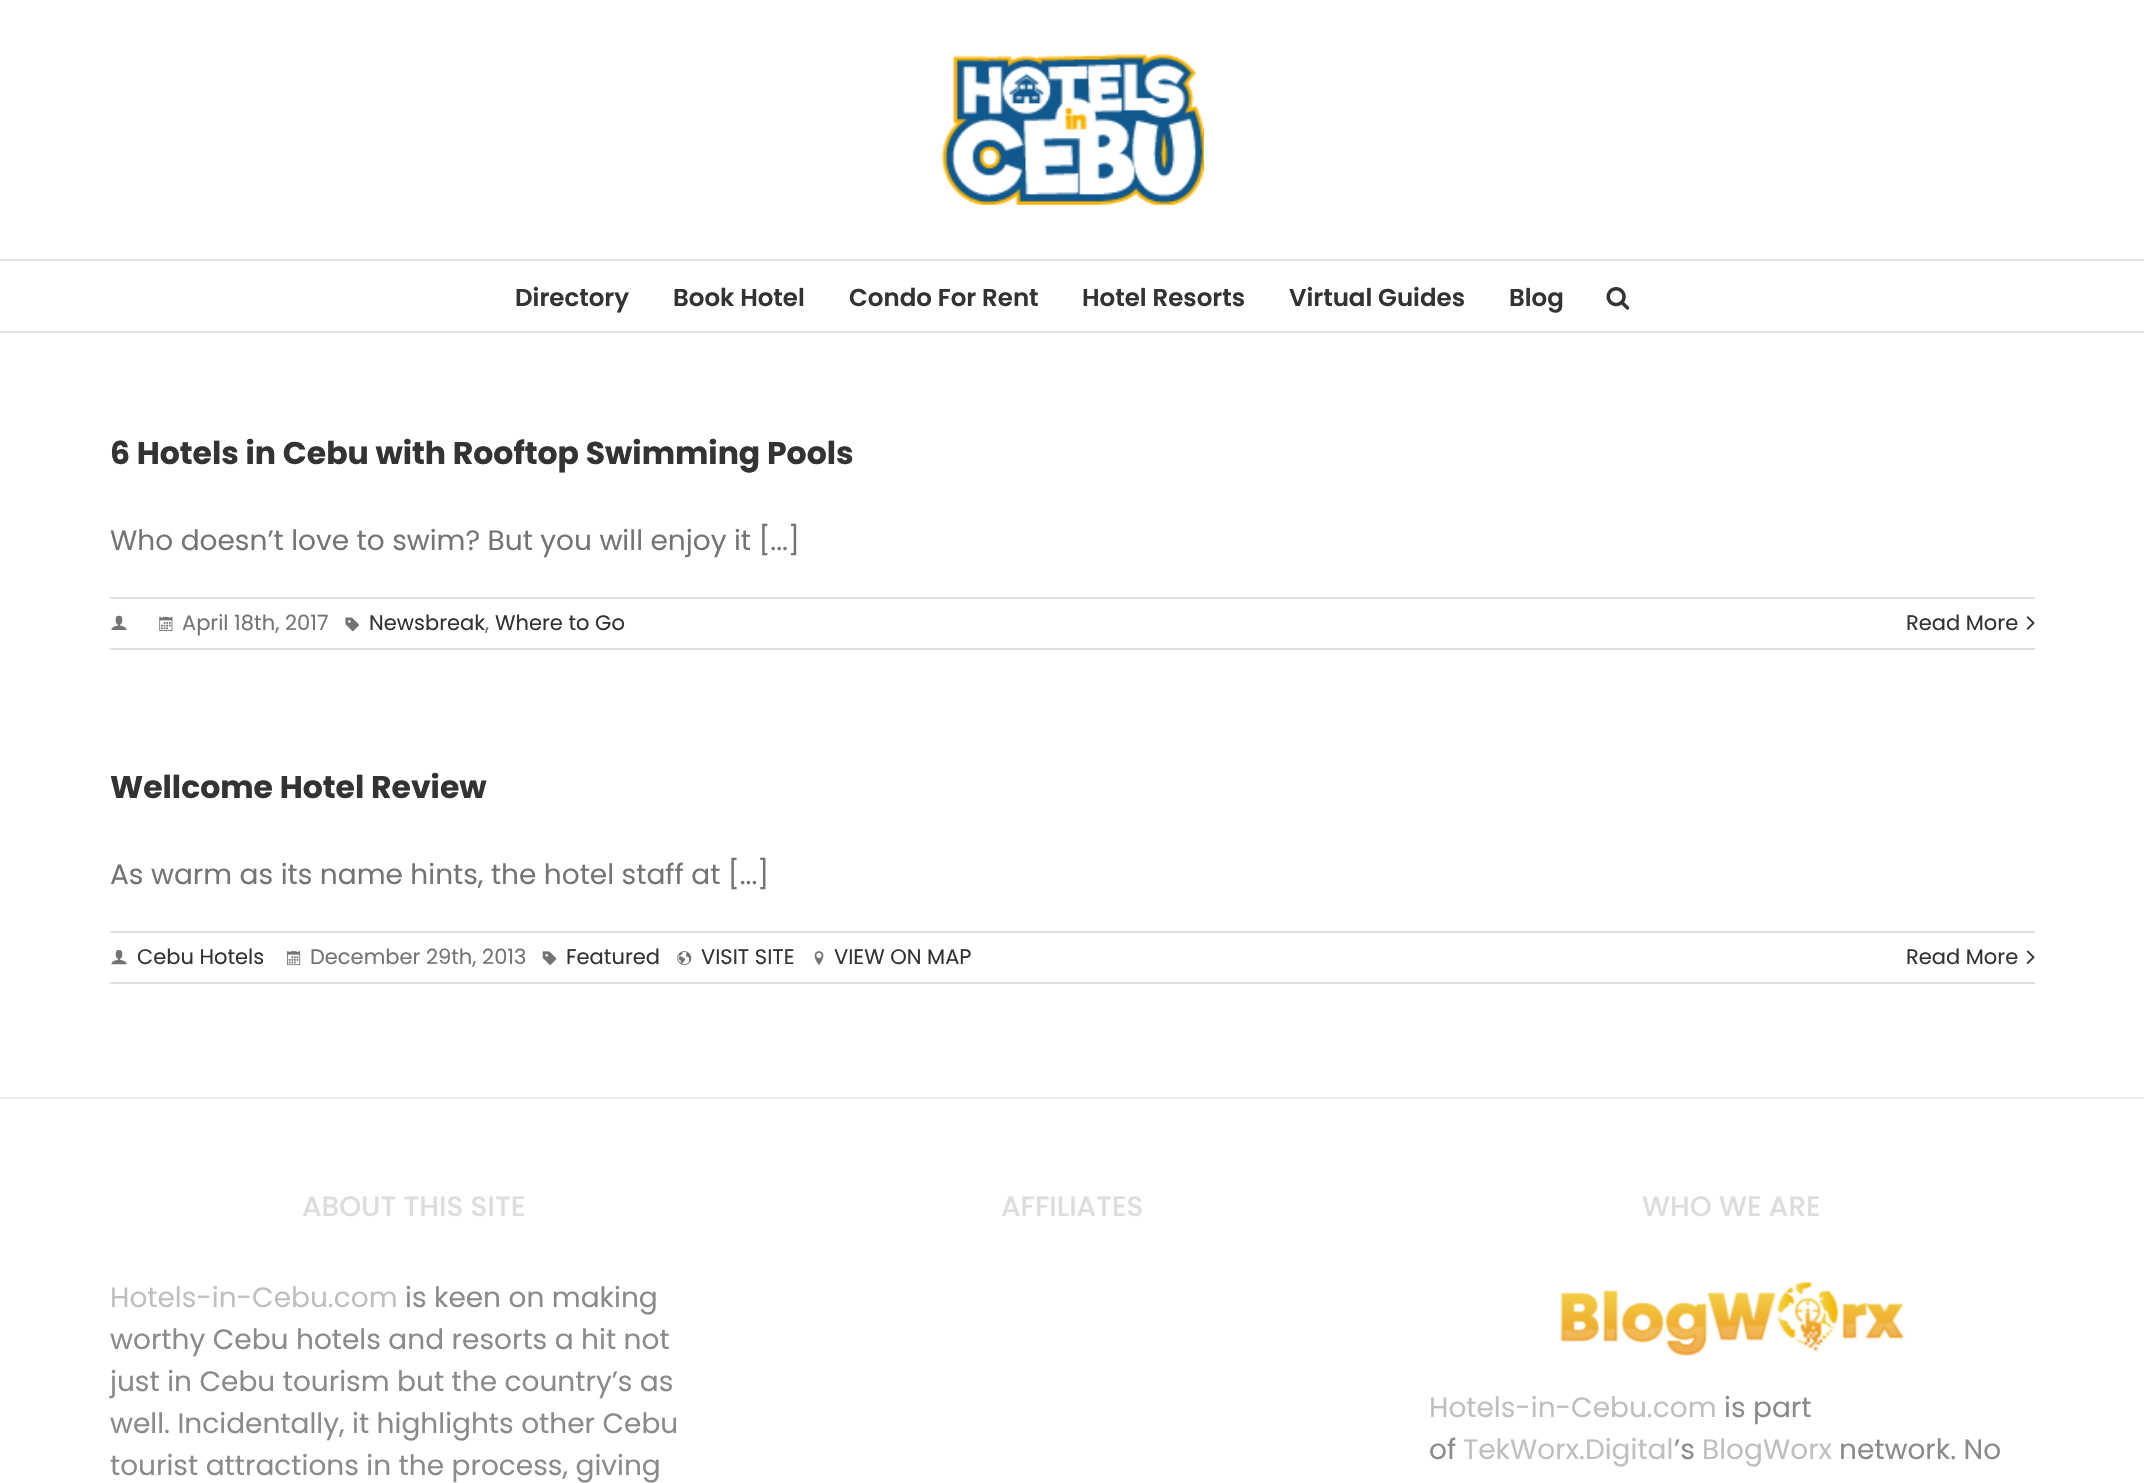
#include "include/core/SkBlurTypes.h"
#include "include/core/SkCanvas.h"
#include "include/core/SkData.h"
#include "include/core/SkFont.h"
#include "include/core/SkFontMgr.h"
#include "include/core/SkImage.h"
#include "include/core/SkMaskFilter.h"
#include "include/core/SkPaint.h"
#include "include/core/SkPathBuilder.h"
#include "include/core/SkTextBlob.h"
#include "include/effects/SkDashPathEffect.h"
#include "include/effects/SkGradientShader.h"
#include "include/utils/SkParsePath.h"

extern sk_sp<SkFontMgr> fontMgr;

void draw(SkCanvas* canvas) {
    SkPaint p;
    p.setAntiAlias(true);
    auto font = [&](const char* family, int weight, float size, bool italic = false) {
        SkFontStyle style(weight, SkFontStyle::kNormal_Width,
            italic ? SkFontStyle::kItalic_Slant : SkFontStyle::kUpright_Slant);
        SkFont result(fontMgr->matchFamilyStyle(family, style), size);
        result.setSubpixel(true);
        return result;
    };
    auto drawPhoto = [&](const char* path, float l, float t, float r, float b) {
        auto image = SkImages::DeferredFromEncodedData(SkData::MakeFromFileName(path));
        canvas->drawImageRect(image, SkRect::MakeLTRB(l, t, r, b), SkSamplingOptions());
    };
    canvas->clear(0xFFFFFFFF);
    p.setColor(0xFFE5E5E5);
    canvas->drawRect(SkRect::MakeLTRB(0, 259, 2144, 261), p);
    drawPhoto("media/1.png", 941, 54, 1204, 205);
    canvas->drawRect(SkRect::MakeLTRB(0, 331, 2144, 333), p);
    auto font1 = font("Poppins", 600, 24.5f);
    p.setColor(0xFF333333);
    {
        const struct { const char* s; float x, y; } items[] = {
            {"Directory", 515, 306},
            {"Book Hotel", 673, 306},
            {"Condo For Rent", 849, 306},
            {"Hotel Resorts", 1082, 306},
            {"Virtual Guides", 1289, 306},
            {"Blog", 1509, 306},
        };
        for (auto [s, x, y] : items) {
            canvas->drawString(s, x, y, font1, p);
        }
    }
    drawPhoto("media/2.png", 1606, 287, 1630, 310);
    auto font2 = font("Poppins", 700, 31.5f);
    canvas->drawString("6 Hotels in Cebu with Rooftop Swimming Pools", 110, 464, font2, p);
    auto font3 = font("Poppins", 400, 28);
    p.setColor(0xFF747474);
    canvas->drawString("Who doesn’t love to swim? But you will enjoy it [...]", 110, 550, font3, p);
    p.setColor(0xFFE0DEDE);
    canvas->drawRect(SkRect::MakeLTRB(110, 597, 2035, 599), p);
    canvas->drawRect(SkRect::MakeLTRB(110, 648, 2035, 650), p);
    drawPhoto("media/3.png", 111, 615, 127, 630);
    drawPhoto("media/4.png", 159, 616, 173, 631);
    auto font4 = font("Poppins", 400, 21);
    p.setColor(0xFF747474);
    canvas->drawString("April 18th, 2017", 182, 630, font4, p);
    drawPhoto("media/5.png", 345, 617, 359, 632);
    p.setColor(0xFF333333);
    canvas->drawString("Newsbreak", 369, 630, font4, p);
    p.setColor(0xFF747474);
    canvas->drawString(",", 485, 630, font4, p);
    p.setColor(0xFF333333);
    canvas->drawString("Where to Go", 495, 630, font4, p);
    canvas->drawString("Read More", 1906, 630, font4, p);
    drawPhoto("media/6.png", 2026, 616, 2035, 630);
    canvas->drawString("Wellcome Hotel Review", 110, 798, font2, p);
    p.setColor(0xFF747474);
    canvas->drawString("As warm as its name hints, the hotel staff at [...]", 110, 884, font3, p);
    p.setColor(0xFFE0DEDE);
    canvas->drawRect(SkRect::MakeLTRB(110, 931, 2035, 933), p);
    canvas->drawRect(SkRect::MakeLTRB(110, 982, 2035, 984), p);
    drawPhoto("media/7.png", 111, 950, 127, 965);
    p.setColor(0xFF333333);
    canvas->drawString("Cebu Hotels", 137, 964, font4, p);
    drawPhoto("media/8.png", 287, 951, 301, 966);
    p.setColor(0xFF747474);
    canvas->drawString("December 29th, 2013", 310, 964, font4, p);
    drawPhoto("media/9.png", 542, 951, 557, 965);
    p.setColor(0xFF333333);
    canvas->drawString("Featured", 566, 964, font4, p);
    drawPhoto("media/10.png", 677, 951, 692, 966);
    canvas->drawString("VISIT SITE", 701, 964, font4, p);
    drawPhoto("media/11.png", 814, 951, 824, 965);
    canvas->drawString("VIEW ON MAP", 834, 964, font4, p);
    canvas->drawString("Read More", 1906, 964, font4, p);
    drawPhoto("media/12.png", 2026, 950, 2035, 964);
    p.setColor(0xFFE9EAEE);
    canvas->drawRect(SkRect::MakeLTRB(0, 1097, 2144, 1099), p);
    auto font5 = font("Poppins", 500, 28);
    p.setColor(0xFFDDDDDD);
    canvas->drawString("ABOUT THIS SITE", 302, 1216, font5, p);
    p.setColor(0xFFBFBFBF);
    canvas->drawString("Hotels-in-Cebu.com", 110, 1307, font3, p);
    p.setColor(0xFF8C8989);
    {
        const struct { const char* s; float x, y; } items[] = {
            {"is keen on making", 405, 1307},
            {"worthy Cebu hotels and resorts a hit not", 110, 1349},
            {"just in Cebu tourism but the country’s as", 110, 1391},
            {"well. Incidentally, it highlights other Cebu", 110, 1433},
            {"tourist attractions in the process, giving", 110, 1475},
        };
        for (auto [s, x, y] : items) {
            canvas->drawString(s, x, y, font3, p);
        }
    }
    p.setColor(0xFFDDDDDD);
    canvas->drawString("AFFILIATES", 1001, 1216, font5, p);
    canvas->drawString("WHO WE ARE", 1642, 1216, font5, p);
    drawPhoto("media/13.png", 1560, 1282, 1905, 1356);
    p.setColor(0xFFBFBFBF);
    canvas->drawString("Hotels-in-Cebu.com", 1429, 1417, font3, p);
    p.setColor(0xFF8C8989);
    canvas->drawString("is part", 1724, 1417, font3, p);
    canvas->drawString("of", 1429, 1459, font3, p);
    p.setColor(0xFFBFBFBF);
    canvas->drawString("TekWorx.Digital", 1463, 1459, font3, p);
    p.setColor(0xFF8C8989);
    canvas->drawString("’s", 1674, 1459, font3, p);
    p.setColor(0xFFBFBFBF);
    canvas->drawString("BlogWorx", 1702, 1459, font3, p);
    p.setColor(0xFF8C8989);
    canvas->drawString("network. No", 1839, 1459, font3, p);
}
